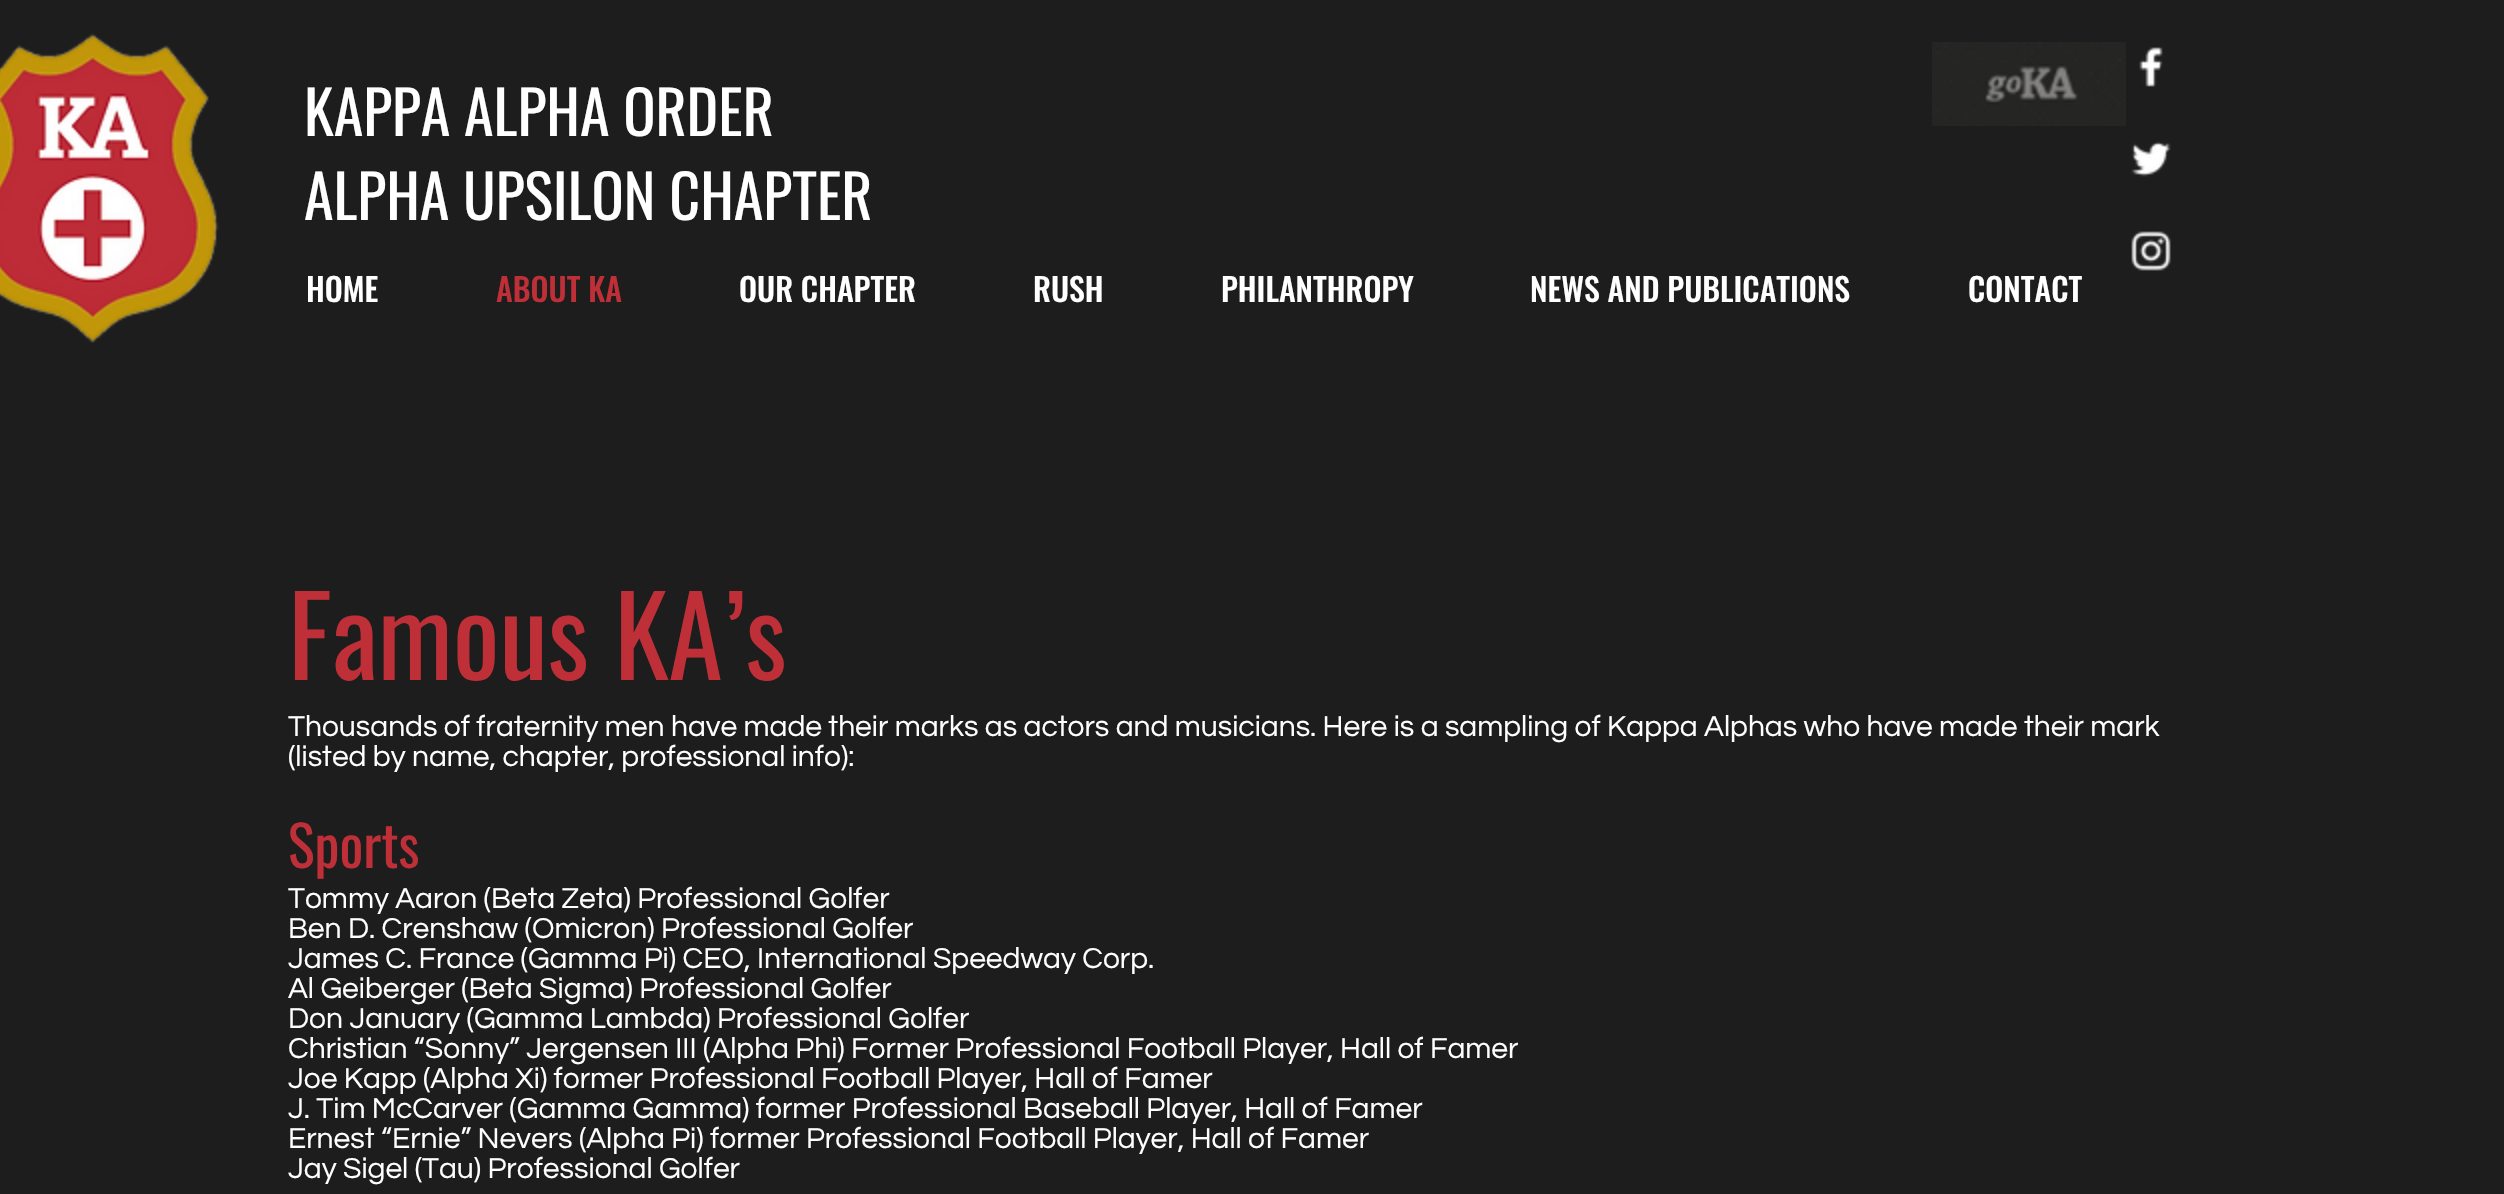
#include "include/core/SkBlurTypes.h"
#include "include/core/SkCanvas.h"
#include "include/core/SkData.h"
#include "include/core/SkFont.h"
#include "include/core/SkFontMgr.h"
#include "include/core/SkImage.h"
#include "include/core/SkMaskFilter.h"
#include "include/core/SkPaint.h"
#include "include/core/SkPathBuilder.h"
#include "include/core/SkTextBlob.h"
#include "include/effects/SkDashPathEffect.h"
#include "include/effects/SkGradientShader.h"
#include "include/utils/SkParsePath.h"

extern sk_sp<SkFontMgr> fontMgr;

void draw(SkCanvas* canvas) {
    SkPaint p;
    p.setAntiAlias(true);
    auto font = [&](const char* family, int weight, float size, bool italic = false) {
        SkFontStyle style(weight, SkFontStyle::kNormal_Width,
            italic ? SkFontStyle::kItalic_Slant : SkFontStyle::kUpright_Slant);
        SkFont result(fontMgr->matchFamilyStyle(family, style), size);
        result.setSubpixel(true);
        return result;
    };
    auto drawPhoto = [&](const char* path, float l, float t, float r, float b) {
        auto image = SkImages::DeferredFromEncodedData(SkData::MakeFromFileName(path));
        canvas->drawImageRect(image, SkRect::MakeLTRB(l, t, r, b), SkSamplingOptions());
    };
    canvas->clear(0xFF1D1D1D);
    drawPhoto("media/1.png", 0, 33, 219, 343);
    auto font1 = font("Oswald", 400, 60);
    p.setColor(0xFFFFFFFF);
    canvas->drawString("KAPPA ALPHA ORDER", 304, 136, font1, p);
    drawPhoto("media/2.png", 1932, 42, 2126, 126);
    drawPhoto("media/3.png", 2139, 47, 2163, 87);
    drawPhoto("media/4.png", 2131, 141, 2171, 177);
    drawPhoto("media/5.png", 2131, 231, 2171, 271);
    canvas->drawString("ALPHA UPSILON CHAPTER", 304, 220, font1, p);
    auto font2 = font("Oswald", 500, 32);
    canvas->drawString("HOME", 306, 302, font2, p);
    p.setColor(0xFFBE2F37);
    canvas->drawString("ABOUT KA", 496, 302, font2, p);
    p.setColor(0xFFFFFFFF);
    {
        const struct { const char* s; float x, y; } items[] = {
            {"OUR CHAPTER", 739, 302},
            {"RUSH", 1033, 302},
            {"PHILANTHROPY", 1221, 302},
            {"NEWS AND PUBLICATIONS", 1530, 302},
            {"CONTACT", 1968, 302},
        };
        for (auto [s, x, y] : items) {
            canvas->drawString(s, x, y, font2, p);
        }
    }
    auto font3 = font("Oswald", 400, 110);
    p.setColor(0xFFBE2F37);
    canvas->drawString("Famous KA’s", 288, 680, font3, p);
    auto font4 = font("Questrial", 400, 30);
    p.setColor(0xFFFFFFFF);
    canvas->drawString("Thousands of fraternity men have made their marks as actors and musicians. Here is a sampling of Kappa Alphas who have made their mark", 288, 736, font4, p);
    canvas->drawString("(listed by name, chapter, professional info):", 288, 766, font4, p);
    auto font5 = font("Oswald", 400, 56);
    p.setColor(0xFFBE2F37);
    canvas->drawString("Sports", 288, 868, font5, p);
    p.setColor(0xFFFFFFFF);
    {
        const struct { const char* s; float x, y; } items[] = {
            {"Tommy Aaron (Beta Zeta) Professional Golfer", 288, 908},
            {"Ben D. Crenshaw (Omicron) Professional Golfer", 288, 938},
            {"James C. France (Gamma Pi) CEO, International Speedway Corp.", 288, 968},
            {"Al Geiberger (Beta Sigma) Professional Golfer", 288, 998},
            {"Don January (Gamma Lambda) Professional Golfer", 288, 1028},
            {"Christian “Sonny” Jergensen III (Alpha Phi) Former Professional Football Player, Hall of Famer", 288, 1058},
            {"Joe Kapp (Alpha Xi) former Professional Football Player, Hall of Famer", 288, 1088},
            {"J. Tim McCarver (Gamma Gamma) former Professional Baseball Player, Hall of Famer", 288, 1118},
            {"Ernest “Ernie” Nevers (Alpha Pi) former Professional Football Player, Hall of Famer", 288, 1148},
            {"Jay Sigel (Tau) Professional Golfer", 288, 1178},
        };
        for (auto [s, x, y] : items) {
            canvas->drawString(s, x, y, font4, p);
        }
    }
}
